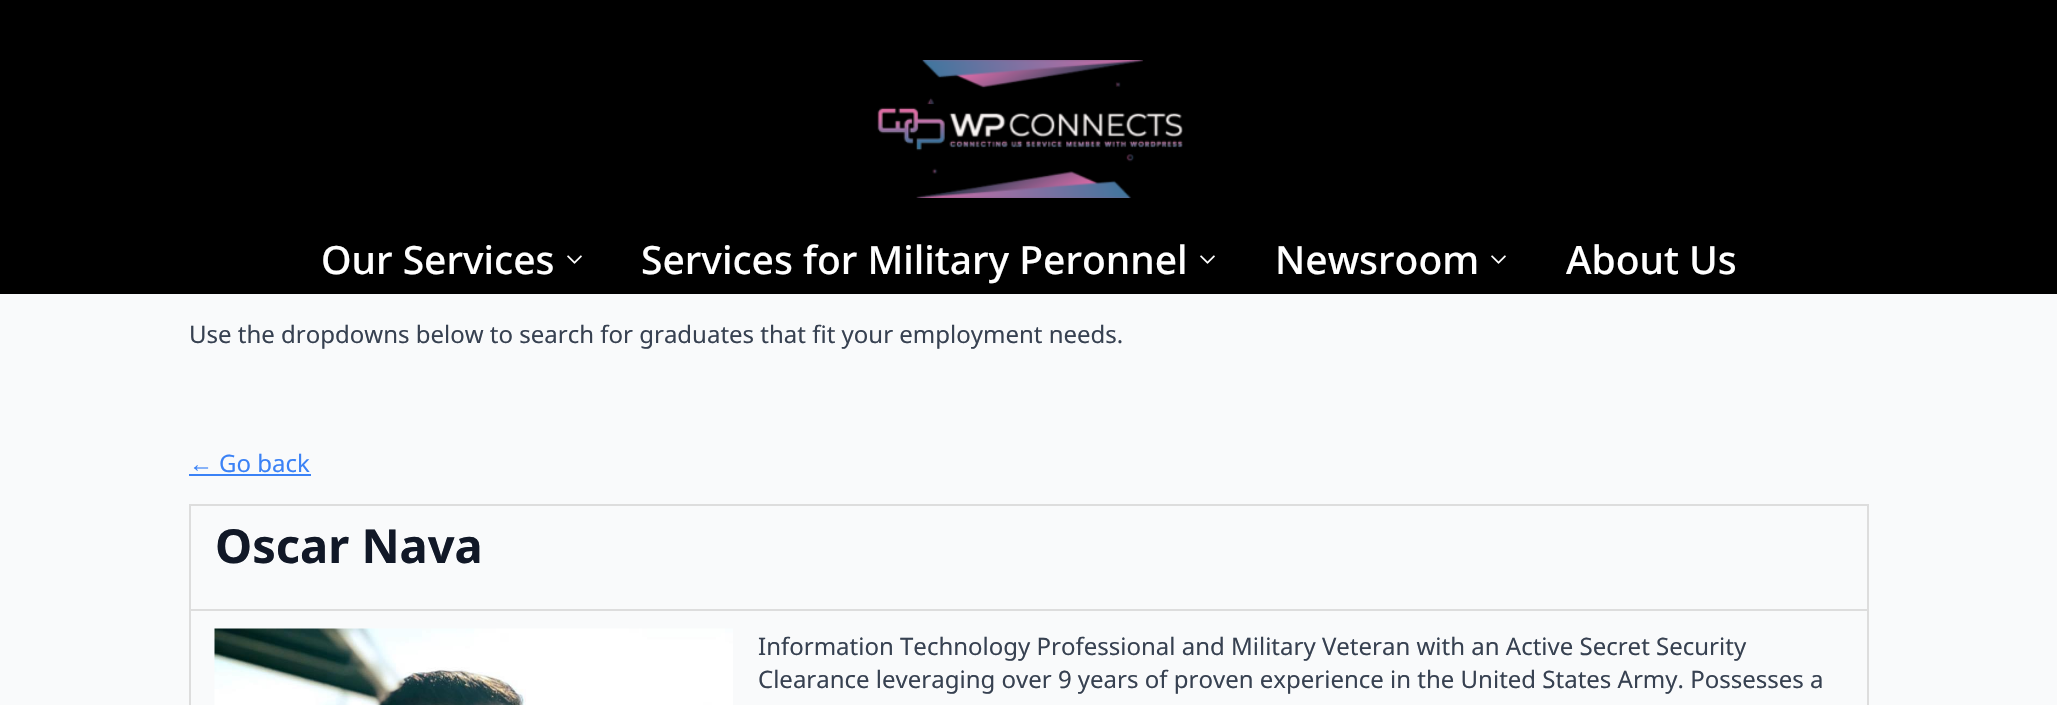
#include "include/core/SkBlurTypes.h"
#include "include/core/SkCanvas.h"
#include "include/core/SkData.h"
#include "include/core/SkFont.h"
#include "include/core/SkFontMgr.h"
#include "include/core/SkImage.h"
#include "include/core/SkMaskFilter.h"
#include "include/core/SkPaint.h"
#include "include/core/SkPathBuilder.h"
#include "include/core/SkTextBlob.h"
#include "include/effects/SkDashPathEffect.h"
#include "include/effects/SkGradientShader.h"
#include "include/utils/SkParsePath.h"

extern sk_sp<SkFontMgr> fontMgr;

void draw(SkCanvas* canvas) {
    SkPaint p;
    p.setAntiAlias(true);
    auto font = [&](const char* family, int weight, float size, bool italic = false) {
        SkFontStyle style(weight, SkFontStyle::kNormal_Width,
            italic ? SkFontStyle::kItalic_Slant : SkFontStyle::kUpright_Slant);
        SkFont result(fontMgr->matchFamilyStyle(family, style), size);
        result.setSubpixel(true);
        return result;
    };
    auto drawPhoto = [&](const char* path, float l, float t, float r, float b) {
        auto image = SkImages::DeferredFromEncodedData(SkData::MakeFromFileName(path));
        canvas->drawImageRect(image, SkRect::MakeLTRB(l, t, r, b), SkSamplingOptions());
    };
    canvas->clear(0xFFF9FAFB);
    p.setColor(0xFF000000);
    canvas->drawRect(SkRect::MakeLTRB(0, 0, 2057, 294), p);
    drawPhoto("media/1.png", 877, 60, 1183, 198);
    auto font1 = font("Noto Sans", 500, 39);
    p.setColor(0xFFFFFFFF);
    canvas->drawString("Our Services", 321, 274, font1, p);
    drawPhoto("media/2.png", 567, 255, 582, 264);
    canvas->drawString("Services for Military Peronnel", 641, 274, font1, p);
    drawPhoto("media/2.png", 1200, 255, 1215, 264);
    canvas->drawString("Newsroom", 1275, 274, font1, p);
    drawPhoto("media/2.png", 1491, 255, 1506, 264);
    canvas->drawString("About Us", 1566, 274, font1, p);
    auto font2 = font("Noto Sans", 400, 24);
    p.setColor(0xFF374151);
    canvas->drawString("Use the dropdowns below to search for graduates that fit your employment needs.", 189, 343, font2, p);
    auto font3 = font("Liberation Sans", 400, 24);
    p.setColor(0xFF3B82F6);
    canvas->drawString("←", 189, 472, font3, p);
    canvas->drawRect(SkRect::MakeLTRB(189, 474, 311, 476), p);
    canvas->drawString("Go back", 219, 472, font2, p);
    p.setStyle(SkPaint::kStroke_Style);
    p.setStrokeWidth(2);
    p.setColor(0xFFDDDDDD);
    canvas->drawRect(SkRect::MakeLTRB(190, 505, 1868, 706), p);
    p.setStyle(SkPaint::kFill_Style);
    canvas->drawRect(SkRect::MakeLTRB(191, 609, 1868, 611), p);
    auto font4 = font("Noto Sans", 700, 47);
    p.setColor(0xFF111827);
    canvas->drawString("Oscar Nava", 215, 563, font4, p);
    drawPhoto("media/3.png", 214, 628, 733, 705);
    p.setColor(0xFF374151);
    canvas->drawString("Information Technology Professional and Military Veteran with an Active Secret Security", 758, 655, font2, p);
    canvas->drawString("Clearance leveraging over 9 years of proven experience in the United States Army. Possesses a", 758, 688, font2, p);
}
